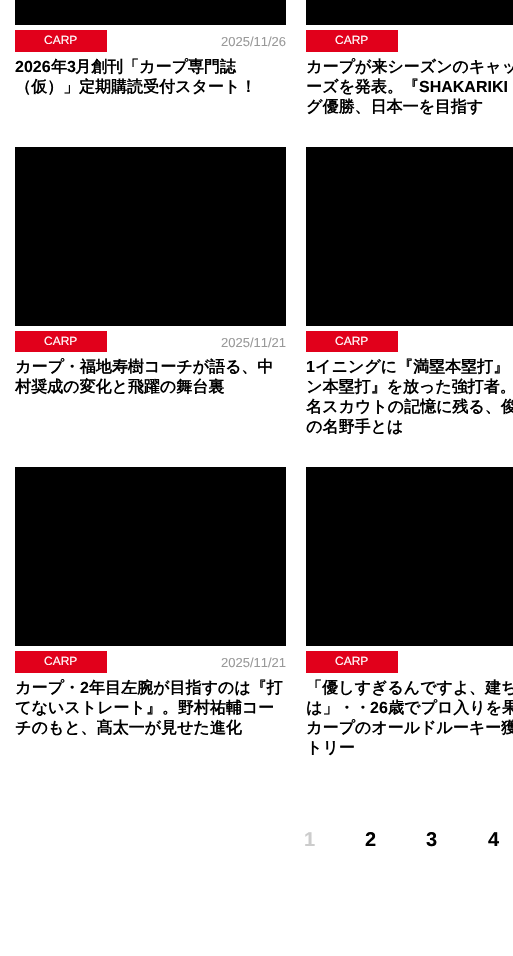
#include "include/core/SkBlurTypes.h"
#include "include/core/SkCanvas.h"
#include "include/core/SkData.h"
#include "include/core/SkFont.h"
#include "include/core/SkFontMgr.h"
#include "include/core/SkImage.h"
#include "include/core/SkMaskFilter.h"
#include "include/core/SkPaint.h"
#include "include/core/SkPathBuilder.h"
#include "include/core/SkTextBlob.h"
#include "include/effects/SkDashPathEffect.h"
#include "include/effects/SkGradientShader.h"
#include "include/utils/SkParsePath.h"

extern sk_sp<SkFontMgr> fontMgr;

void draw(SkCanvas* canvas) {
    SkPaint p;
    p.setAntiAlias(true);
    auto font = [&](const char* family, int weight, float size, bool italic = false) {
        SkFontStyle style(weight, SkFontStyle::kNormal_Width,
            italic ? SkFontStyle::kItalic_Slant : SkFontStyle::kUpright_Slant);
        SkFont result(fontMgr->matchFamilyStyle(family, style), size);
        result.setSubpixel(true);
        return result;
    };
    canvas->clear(0xFFFFFFFF);
    p.setColor(0xFF000000);
    canvas->drawRect(SkRect::MakeLTRB(15, 0, 286, 25), p);
    p.setColor(0xFFE1001B);
    canvas->drawRect(SkRect::MakeLTRB(15, 30, 107, 52), p);
    auto font1 = font("Liberation Sans", 400, 12);
    p.setColor(0xFFFFFFFF);
    canvas->drawString("CARP", 44, 44, font1, p);
    auto font2 = font("Liberation Sans", 400, 13);
    p.setColor(0xFF999999);
    canvas->drawString("2025/11/26", 221, 46, font2, p);
    auto font3 = font("Liberation Sans", 700, 16);
    p.setColor(0xFF000000);
    canvas->drawString("2026", 15, 72, font3, p);
    auto font4 = font("WenQuanYi Zen Hei", 700, 16);
    canvas->drawString("年", 51, 72, font4, p);
    canvas->drawString("3", 67, 72, font3, p);
    canvas->drawString("月創刊「カープ専門誌", 75, 72, font4, p);
    canvas->drawString("（仮）」定期購読受付スタート！", 15, 92, font4, p);
    canvas->drawRect(SkRect::MakeLTRB(306, 0, 513, 25), p);
    p.setColor(0xFFE1001B);
    canvas->drawRect(SkRect::MakeLTRB(306, 30, 398, 52), p);
    p.setColor(0xFFFFFFFF);
    canvas->drawString("CARP", 335, 44, font1, p);
    p.setColor(0xFF000000);
    canvas->drawString("カープが来シーズンのキャッ", 306, 72, font4, p);
    canvas->drawString("ーズを発表。『", 306, 92, font4, p);
    canvas->drawString("SHAKARIKI", 419, 92, font3, p);
    canvas->drawString("グ優勝、日本一を目指す", 306, 112, font4, p);
    canvas->drawRect(SkRect::MakeLTRB(15, 147, 286, 326), p);
    p.setColor(0xFFE1001B);
    canvas->drawRect(SkRect::MakeLTRB(15, 331, 107, 352), p);
    p.setColor(0xFFFFFFFF);
    canvas->drawString("CARP", 44, 345, font1, p);
    p.setColor(0xFF999999);
    canvas->drawString("2025/11/21", 221, 347, font2, p);
    p.setColor(0xFF000000);
    canvas->drawString("カープ・福地寿樹コーチが語る、中", 15, 372, font4, p);
    canvas->drawString("村奨成の変化と飛躍の舞台裏", 15, 392, font4, p);
    canvas->drawRect(SkRect::MakeLTRB(306, 147, 513, 326), p);
    p.setColor(0xFFE1001B);
    canvas->drawRect(SkRect::MakeLTRB(306, 331, 398, 352), p);
    p.setColor(0xFFFFFFFF);
    canvas->drawString("CARP", 335, 345, font1, p);
    p.setColor(0xFF000000);
    canvas->drawString("1", 306, 372, font3, p);
    {
        const struct { const char* s; float x, y; } items[] = {
            {"イニングに『満塁本塁打』", 315, 372},
            {"ン本塁打』を放った強打者。", 306, 392},
            {"名スカウトの記憶に残る、俊", 306, 412},
            {"の名野手とは", 306, 432},
        };
        for (auto [s, x, y] : items) {
            canvas->drawString(s, x, y, font4, p);
        }
    }
    canvas->drawRect(SkRect::MakeLTRB(15, 467, 286, 646), p);
    p.setColor(0xFFE1001B);
    canvas->drawRect(SkRect::MakeLTRB(15, 651, 107, 673), p);
    p.setColor(0xFFFFFFFF);
    canvas->drawString("CARP", 44, 665, font1, p);
    p.setColor(0xFF999999);
    canvas->drawString("2025/11/21", 221, 667, font2, p);
    p.setColor(0xFF000000);
    canvas->drawString("カープ・", 15, 693, font4, p);
    canvas->drawString("2", 80, 693, font3, p);
    {
        const struct { const char* s; float x, y; } items[] = {
            {"年目左腕が目指すのは『打", 89, 693},
            {"てないストレート』。野村祐輔コー", 15, 713},
            {"チのもと、髙太一が見せた進化", 15, 733},
        };
        for (auto [s, x, y] : items) {
            canvas->drawString(s, x, y, font4, p);
        }
    }
    canvas->drawRect(SkRect::MakeLTRB(306, 467, 513, 646), p);
    p.setColor(0xFFE1001B);
    canvas->drawRect(SkRect::MakeLTRB(306, 651, 398, 673), p);
    p.setColor(0xFFFFFFFF);
    canvas->drawString("CARP", 335, 665, font1, p);
    p.setColor(0xFF000000);
    canvas->drawString("「優しすぎるんですよ、建ち", 306, 693, font4, p);
    canvas->drawString("は」・・", 306, 713, font4, p);
    canvas->drawString("26", 370, 713, font3, p);
    {
        const struct { const char* s; float x, y; } items[] = {
            {"歳でプロ入りを果", 388, 713},
            {"カープのオールドルーキー獲", 306, 733},
            {"トリー", 306, 753},
        };
        for (auto [s, x, y] : items) {
            canvas->drawString(s, x, y, font4, p);
        }
    }
    auto font5 = font("Liberation Sans", 700, 20);
    p.setColor(0xFFCCCCCC);
    canvas->drawString("1", 304, 846, font5, p);
    p.setColor(0xFF000000);
    {
        const struct { const char* s; float x, y; } items[] = {
            {"2", 365, 846},
            {"3", 426, 846},
            {"4", 488, 846},
        };
        for (auto [s, x, y] : items) {
            canvas->drawString(s, x, y, font5, p);
        }
    }
}
